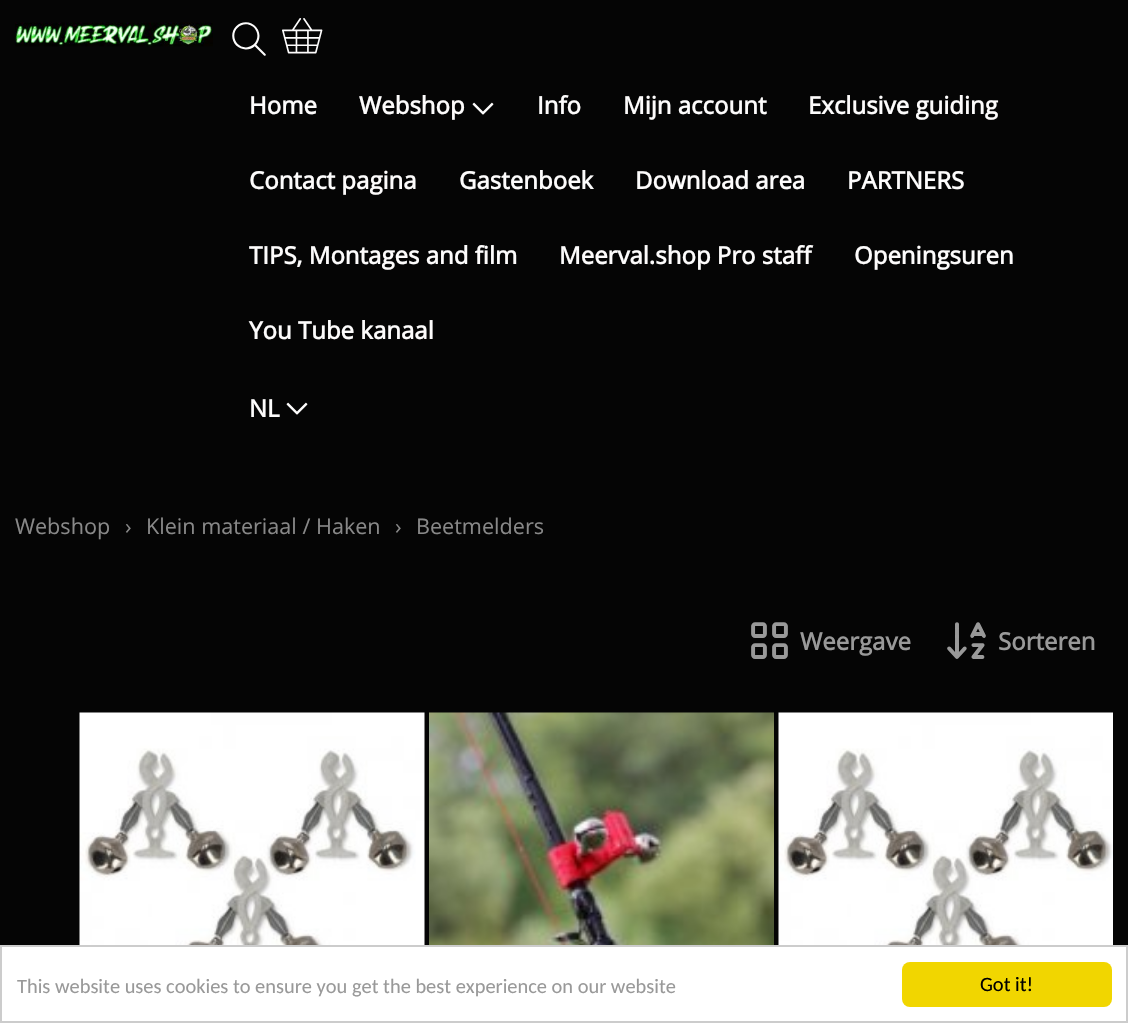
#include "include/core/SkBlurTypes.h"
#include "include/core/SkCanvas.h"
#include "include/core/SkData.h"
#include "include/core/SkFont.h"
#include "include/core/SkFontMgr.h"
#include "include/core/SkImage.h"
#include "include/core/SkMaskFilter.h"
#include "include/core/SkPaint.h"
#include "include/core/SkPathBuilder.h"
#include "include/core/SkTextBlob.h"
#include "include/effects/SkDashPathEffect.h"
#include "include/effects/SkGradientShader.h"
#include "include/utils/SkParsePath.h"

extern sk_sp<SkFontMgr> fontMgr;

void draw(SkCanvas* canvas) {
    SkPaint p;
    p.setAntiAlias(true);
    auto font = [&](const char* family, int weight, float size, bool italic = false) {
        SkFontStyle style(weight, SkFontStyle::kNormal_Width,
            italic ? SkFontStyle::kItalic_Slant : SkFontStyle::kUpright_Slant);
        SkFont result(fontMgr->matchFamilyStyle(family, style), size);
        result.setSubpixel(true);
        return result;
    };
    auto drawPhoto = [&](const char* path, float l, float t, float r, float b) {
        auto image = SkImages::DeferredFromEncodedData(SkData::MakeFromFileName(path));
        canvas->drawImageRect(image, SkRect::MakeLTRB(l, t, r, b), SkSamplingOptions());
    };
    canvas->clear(0xFF050505);
    drawPhoto("media/1.png", 15, 22, 213, 47);
    drawPhoto("media/2.png", 232, 22, 266, 56);
    drawPhoto("media/3.png", 282, 18, 323, 54);
    auto font1 = font("Open Sans", 700, 24);
    p.setColor(0xFFFDFCFC);
    canvas->drawString("Home", 249, 114, font1, p);
    canvas->drawString("Webshop", 359, 114, font1, p);
    drawPhoto("media/4.png", 472, 102, 494, 115);
    {
        const struct { const char* s; float x, y; } items[] = {
            {"Info", 537, 114},
            {"Mijn account", 623, 114},
            {"Exclusive guiding", 808, 114},
            {"Contact pagina", 249, 189},
            {"Gastenboek", 459, 189},
            {"Download area", 635, 189},
            {"PARTNERS", 847, 189},
            {"TIPS, Montages and film", 249, 264},
            {"Meerval.shop Pro staff", 559, 264},
            {"Openingsuren", 854, 264},
            {"You Tube kanaal", 249, 339},
            {"NL", 249, 417},
        };
        for (auto [s, x, y] : items) {
            canvas->drawString(s, x, y, font1, p);
        }
    }
    drawPhoto("media/4.png", 286, 402, 308, 415);
    auto font2 = font("Open Sans", 400, 21.6f);
    p.setColor(0xFF888888);
    {
        const struct { const char* s; float x, y; } items[] = {
            {"Webshop", 15, 534},
            {"›", 125, 534},
            {"Klein materiaal / Haken", 146, 534},
            {"›", 395, 534},
            {"Beetmelders", 416, 534},
        };
        for (auto [s, x, y] : items) {
            canvas->drawString(s, x, y, font2, p);
        }
    }
    drawPhoto("media/5.png", 751, 622, 788, 659);
    p.setColor(0xFF999999);
    canvas->drawString("Weergave", 800, 650, font1, p);
    drawPhoto("media/6.png", 947, 622, 986, 659);
    canvas->drawString("Sorteren", 998, 650, font1, p);
    drawPhoto("media/7.png", 79, 712, 425, 945);
    drawPhoto("media/8.png", 429, 712, 774, 945);
    drawPhoto("media/9.png", 778, 712, 1113, 945);
    p.setColor(0xFFFFFFFF);
    canvas->drawRect(SkRect::MakeLTRB(1, 946, 1127, 1022), p);
    p.setStyle(SkPaint::kStroke_Style);
    p.setStrokeWidth(2);
    p.setColor(0xFFCCCCCC);
    canvas->drawRect(SkRect::MakeLTRB(1, 946, 1127, 1022), p);
    auto font3 = font("Carlito", 400, 20.4f);
    p.setStyle(SkPaint::kFill_Style);
    p.setColor(0xFF999999);
    canvas->drawString("This website uses cookies to ensure you get the best experience on our website", 17, 993, font3, p);
    p.setColor(0xFFF1D600);
    canvas->drawRoundRect(SkRect::MakeLTRB(902, 962, 1112, 1007), 8, 8, p);
    p.setColor(0xFF000000);
    canvas->drawString("Got it!", 980, 991, font3, p);
}
